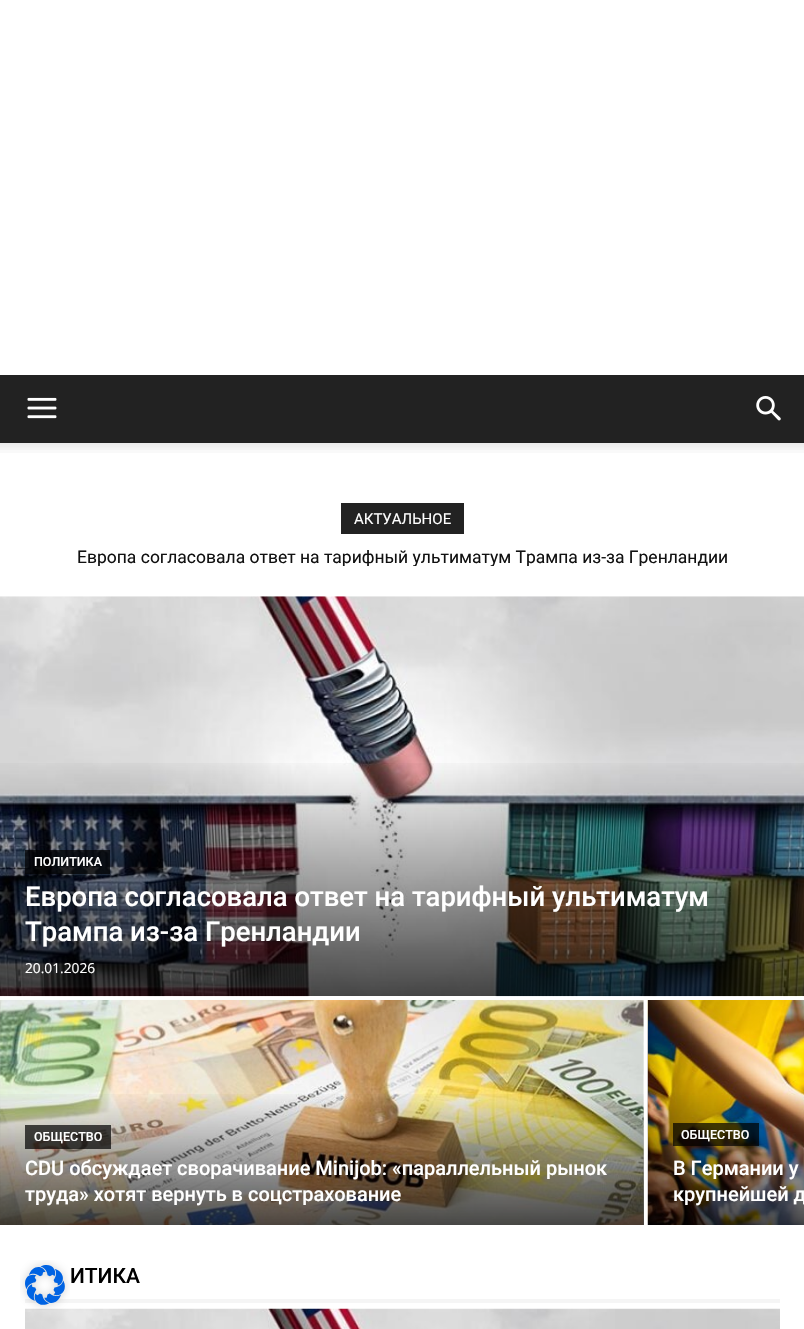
#include "include/core/SkBlurTypes.h"
#include "include/core/SkCanvas.h"
#include "include/core/SkData.h"
#include "include/core/SkFont.h"
#include "include/core/SkFontMgr.h"
#include "include/core/SkImage.h"
#include "include/core/SkMaskFilter.h"
#include "include/core/SkPaint.h"
#include "include/core/SkPathBuilder.h"
#include "include/core/SkTextBlob.h"
#include "include/effects/SkDashPathEffect.h"
#include "include/effects/SkGradientShader.h"
#include "include/utils/SkParsePath.h"

extern sk_sp<SkFontMgr> fontMgr;

void draw(SkCanvas* canvas) {
    SkPaint p;
    p.setAntiAlias(true);
    auto font = [&](const char* family, int weight, float size, bool italic = false) {
        SkFontStyle style(weight, SkFontStyle::kNormal_Width,
            italic ? SkFontStyle::kItalic_Slant : SkFontStyle::kUpright_Slant);
        SkFont result(fontMgr->matchFamilyStyle(family, style), size);
        result.setSubpixel(true);
        return result;
    };
    auto drawPhoto = [&](const char* path, float l, float t, float r, float b) {
        auto image = SkImages::DeferredFromEncodedData(SkData::MakeFromFileName(path));
        canvas->drawImageRect(image, SkRect::MakeLTRB(l, t, r, b), SkSamplingOptions());
    };
    canvas->clear(0xFFFFFFFF);
    p.setColor(0xFF222222);
    canvas->drawRect(SkRect::MakeLTRB(0, 375, 804, 443), p);
    drawPhoto("media/1.png", 27, 397, 57, 419);
    drawPhoto("media/2.png", 756, 396, 781, 421);
    drawPhoto("media/3.png", 0, 443, 804, 453);
    canvas->drawRect(SkRect::MakeLTRB(341, 503, 464, 534), p);
    auto font1 = font("Roboto", 400, 15);
    p.setColor(0xFFFFFFFF);
    canvas->drawString("АКТУАЛЬНОЕ", 354, 524, font1, p);
    canvas->save();
    canvas->clipRect(SkRect::MakeLTRB(25, 546, 780, 566));
    auto font2 = font("Roboto", 400, 17.5f);
    p.setColor(0xFF111111);
    canvas->drawString("Европа согласовала ответ на тарифный ультиматум Трампа из-за Гренландии", 77, 563, font2, p);
    canvas->restore();
    drawPhoto("media/4.png", 0, 596, 804, 997);
    {
        const SkColor colors[] = {0xB3000000, 0x00000000, 0x00000000};
        const float stops[] = {0, 0.6f, 1};
        const SkPoint ends[] = {{403, 996}, {403, 596}};
        p.setShader(SkGradientShader::MakeLinear(ends, colors, stops, 3, SkTileMode::kClamp));
        p.setAlpha(255);
    }
    canvas->drawRect(SkRect::MakeLTRB(0, 763, 804, 996), p);
    p.setShader(nullptr);
    p.setColor(0xB3000000);
    canvas->drawRect(SkRect::MakeLTRB(25, 850, 110, 874), p);
    auto font3 = font("Roboto", 500, 12.5f);
    p.setColor(0xFFFFFFFF);
    canvas->drawString("ПОЛИТИКА", 34, 866, font3, p);
    auto font4 = font("Roboto", 500, 27.5f);
    canvas->drawString("Европа согласовала ответ на тарифный ультиматум", 25, 906, font4, p);
    canvas->drawString("Трампа из-за Гренландии", 25, 941, font4, p);
    auto font5 = font("Open Sans", 400, 13.75f);
    canvas->drawString("20.01.2026", 25, 973, font5, p);
    drawPhoto("media/5.png", 0, 1000, 644, 1225);
    {
        const SkColor colors[] = {0xB3000000, 0x00000000, 0x00000000};
        const float stops[] = {0, 0.6f, 1};
        const SkPoint ends[] = {{322, 1225}, {322, 1000}};
        p.setShader(SkGradientShader::MakeLinear(ends, colors, stops, 3, SkTileMode::kClamp));
        p.setAlpha(255);
    }
    canvas->drawRect(SkRect::MakeLTRB(0, 1094, 644, 1225), p);
    p.setShader(nullptr);
    p.setColor(0xB3000000);
    canvas->drawRect(SkRect::MakeLTRB(25, 1125, 111, 1149), p);
    p.setColor(0xFFFFFFFF);
    canvas->drawString("ОБЩЕСТВО", 34, 1141, font3, p);
    auto font6 = font("Roboto", 500, 20);
    canvas->drawString("CDU обсуждает сворачивание Minijob: «параллельный рынок", 25, 1175, font6, p);
    canvas->drawString("труда» хотят вернуть в соцстрахование", 25, 1201, font6, p);
    drawPhoto("media/6.png", 647, 1000, 804, 1225);
    p.setColor(0xB3000000);
    canvas->drawRect(SkRect::MakeLTRB(673, 1123, 759, 1146), p);
    p.setColor(0xFFFFFFFF);
    canvas->drawString("ОБЩЕСТВО", 681, 1139, font3, p);
    canvas->drawString("В Германии у", 673, 1175, font6, p);
    canvas->drawString("крупнейшей д", 673, 1201, font6, p);
    auto font7 = font("Roboto", 500, 21);
    p.setColor(0xFF000000);
    canvas->drawString("ИТИКА", 70, 1283, font7, p);
    p.setColor(0xFFF5F5F5);
    canvas->drawRect(SkRect::MakeLTRB(25, 1299, 780, 1303), p);
    drawPhoto("media/7.png", 25, 1308, 780, 1329);
    drawPhoto("media/8.png", 20, 1260, 70, 1310);
}
